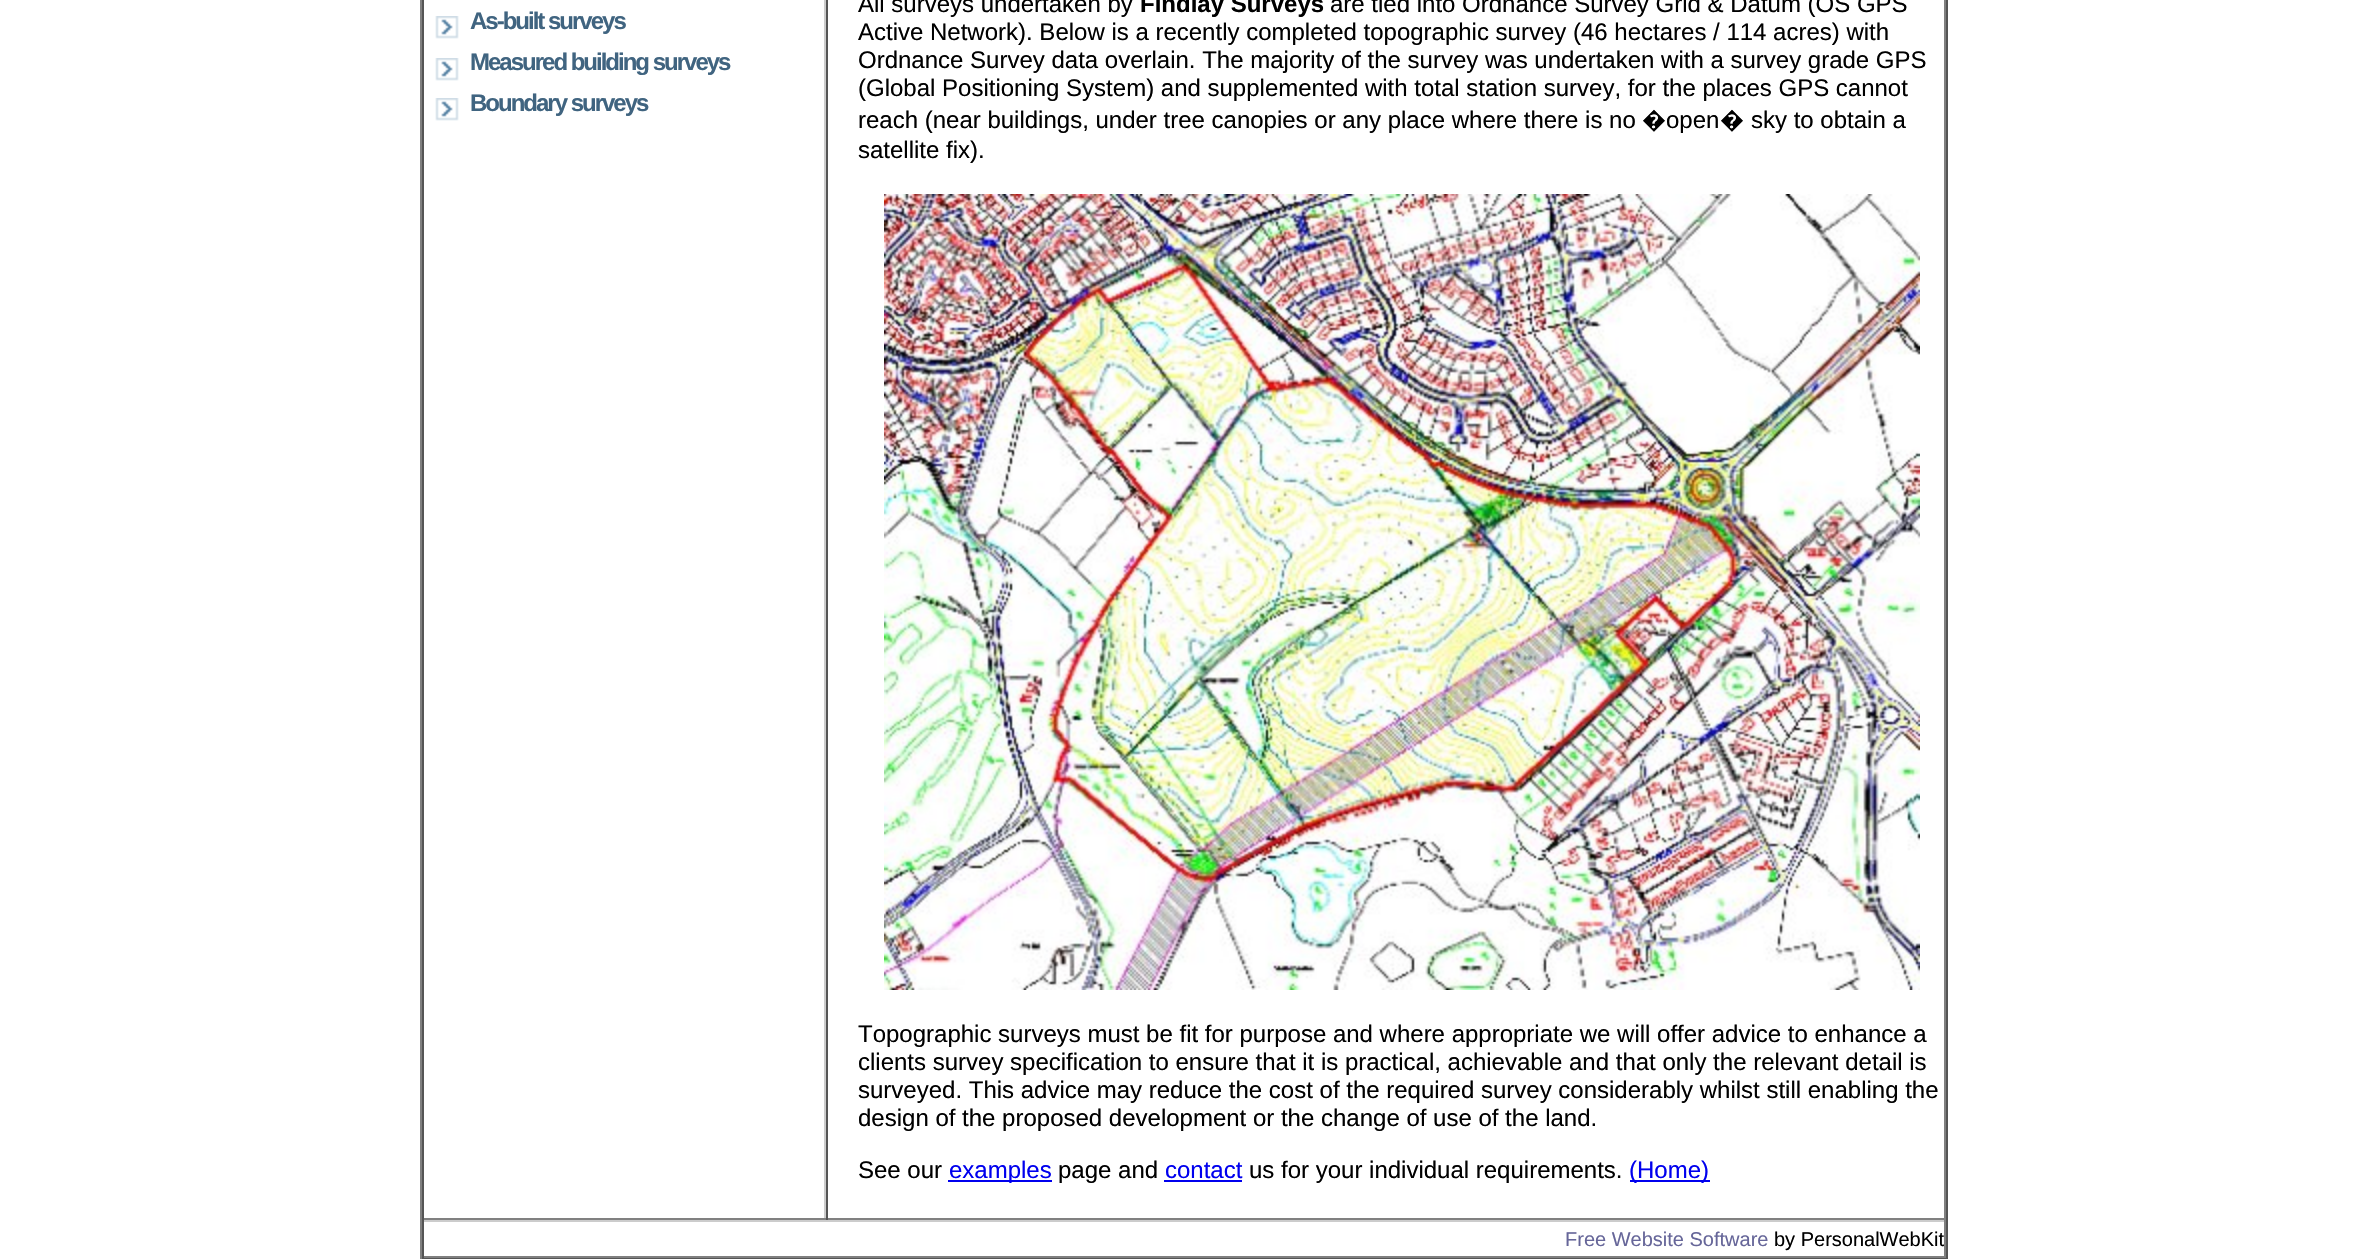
#include "include/core/SkBlurTypes.h"
#include "include/core/SkCanvas.h"
#include "include/core/SkData.h"
#include "include/core/SkFont.h"
#include "include/core/SkFontMgr.h"
#include "include/core/SkImage.h"
#include "include/core/SkMaskFilter.h"
#include "include/core/SkPaint.h"
#include "include/core/SkPathBuilder.h"
#include "include/core/SkTextBlob.h"
#include "include/effects/SkDashPathEffect.h"
#include "include/effects/SkGradientShader.h"
#include "include/utils/SkParsePath.h"

extern sk_sp<SkFontMgr> fontMgr;

void draw(SkCanvas* canvas) {
    SkPaint p;
    p.setAntiAlias(true);
    auto font = [&](const char* family, int weight, float size, bool italic = false) {
        SkFontStyle style(weight, SkFontStyle::kNormal_Width,
            italic ? SkFontStyle::kItalic_Slant : SkFontStyle::kUpright_Slant);
        SkFont result(fontMgr->matchFamilyStyle(family, style), size);
        result.setSubpixel(true);
        return result;
    };
    auto drawTracked = [&](const char* s, float x, float y, const SkFont& font, const SkPaint& ink, float letter, float word) {
        std::vector<SkGlyphID> glyphs(font.countText(s, strlen(s), SkTextEncoding::kUTF8));
        std::vector<float> xs(glyphs.size());
        font.textToGlyphs(s, strlen(s), SkTextEncoding::kUTF8, glyphs);
        font.getXPos(glyphs, xs, x);
        float extra = 0;
        for (size_t i = 0; i < glyphs.size(); i++) {
            xs[i] += extra;
            extra += letter + word * (glyphs[i] == font.unicharToGlyph(' '));
        }
        canvas->drawTextBlob(SkTextBlob::MakeFromPosHGlyphs(glyphs, xs, y, font), 0, 0, ink);
    };
    auto drawPhoto = [&](const char* path, float l, float t, float r, float b) {
        auto image = SkImages::DeferredFromEncodedData(SkData::MakeFromFileName(path));
        canvas->drawImageRect(image, SkRect::MakeLTRB(l, t, r, b), SkSamplingOptions());
    };
    canvas->clear(0xFFFFFFFF);
    {
        const struct { float l, t, r, b; SkColor color; } items[] = {
            {1946, 0, 1948, 1259, 0xFF555555},
            {420, 1258, 1948, 1259, 0xFF555555},
            {420, 0, 422, 1259, 0xFF808080},
            {824, 0, 826, 1220, 0xFFCCCCCC},
            {422, 1218, 826, 1220, 0xFF808080},
            {422, 0, 424, 1220, 0xFF555555},
        };
        for (auto [l, t, r, b, color] : items) {
            p.setColor(color);
            canvas->drawRect(SkRect::MakeLTRB(l, t, r, b), p);
        }
    }
    drawPhoto("media/1.png", 435, 16, 459, 39);
    auto font1 = font("Liberation Sans", 700, 24);
    p.setColor(0xFF406480);
    drawTracked("As-built surveys", 470, 29, font1, p, -2, 0);
    drawPhoto("media/1.png", 435, 58, 459, 81);
    drawTracked("Measured building surveys", 470, 70, font1, p, -2, 0);
    drawPhoto("media/1.png", 435, 98, 459, 121);
    drawTracked("Boundary surveys", 470, 111, font1, p, -2, 0);
    {
        const struct { float l, t, r, b; SkColor color; } items[] = {
            {1944, 0, 1946, 1220, 0xFF808080},
            {826, 1218, 1946, 1220, 0xFF808080},
            {826, 0, 828, 1220, 0xFF555555},
        };
        for (auto [l, t, r, b, color] : items) {
            p.setColor(color);
            canvas->drawRect(SkRect::MakeLTRB(l, t, r, b), p);
        }
    }
    auto font2 = font("Liberation Sans", 400, 24);
    p.setColor(0xFF000000);
    canvas->drawString("All surveys undertaken by", 858, 12, font2, p);
    canvas->drawString("Findlay Surveys", 1140, 12, font1, p);
    {
        const struct { const char* s; float x, y; } items[] = {
            {"are tied into Ordnance Survey Grid & Datum (OS GPS", 1330, 12},
            {"Active Network). Below is a recently completed topographic survey (46 hectares / 114 acres) with", 858, 40},
            {"Ordnance Survey data overlain. The majority of the survey was undertaken with a survey grade GPS", 858, 68},
            {"(Global Positioning System) and supplemented with total station survey, for the places GPS cannot", 858, 96},
            {"reach (near buildings, under tree canopies or any place where there is no", 858, 128},
        };
        for (auto [s, x, y] : items) {
            canvas->drawString(s, x, y, font2, p);
        }
    }
    auto font3 = font("Noto Sans", 400, 24);
    canvas->drawString("�", 1642, 128, font3, p);
    canvas->drawString("open", 1666, 128, font2, p);
    canvas->drawString("�", 1720, 128, font3, p);
    canvas->drawString("sky to obtain a", 1751, 128, font2, p);
    canvas->drawString("satellite fix).", 858, 158, font2, p);
    drawPhoto("media/2.png", 884, 194, 1920, 990);
    {
        const struct { const char* s; float x, y; } items[] = {
            {"Topographic surveys must be fit for purpose and where appropriate we will offer advice to enhance a", 858, 1042},
            {"clients survey specification to ensure that it is practical, achievable and that only the relevant detail is", 858, 1070},
            {"surveyed. This advice may reduce the cost of the required survey considerably whilst still enabling the", 858, 1098},
            {"design of the proposed development or the change of use of the land.", 858, 1126},
            {"See our", 858, 1178},
        };
        for (auto [s, x, y] : items) {
            canvas->drawString(s, x, y, font2, p);
        }
    }
    p.setColor(0xFF0000EE);
    canvas->drawRect(SkRect::MakeLTRB(948, 1180, 1052, 1182), p);
    canvas->drawString("examples", 949, 1178, font2, p);
    p.setColor(0xFF000000);
    canvas->drawString("page and", 1058, 1178, font2, p);
    p.setColor(0xFF0000EE);
    canvas->drawString("contact", 1165, 1178, font2, p);
    canvas->drawRect(SkRect::MakeLTRB(1164, 1180, 1242, 1182), p);
    p.setColor(0xFF000000);
    canvas->drawString("us for your individual requirements.", 1249, 1178, font2, p);
    p.setColor(0xFF0000EE);
    canvas->drawRect(SkRect::MakeLTRB(1630, 1180, 1710, 1182), p);
    canvas->drawString("(Home)", 1629, 1178, font2, p);
    {
        const struct { float l, t, r, b; SkColor color; } items[] = {
            {422, 1220, 1946, 1222, 0xFFCCCCCC},
            {1944, 1220, 1946, 1258, 0xFF808080},
            {422, 1256, 1946, 1258, 0xFF808080},
            {422, 1220, 424, 1258, 0xFF555555},
        };
        for (auto [l, t, r, b, color] : items) {
            p.setColor(color);
            canvas->drawRect(SkRect::MakeLTRB(l, t, r, b), p);
        }
    }
    auto font4 = font("Liberation Sans", 400, 20);
    p.setColor(0xFF666699);
    canvas->drawString("Free Website Software", 1565, 1246, font4, p);
    p.setColor(0xFF000000);
    canvas->drawString("by PersonalWebKit", 1774, 1246, font4, p);
}
